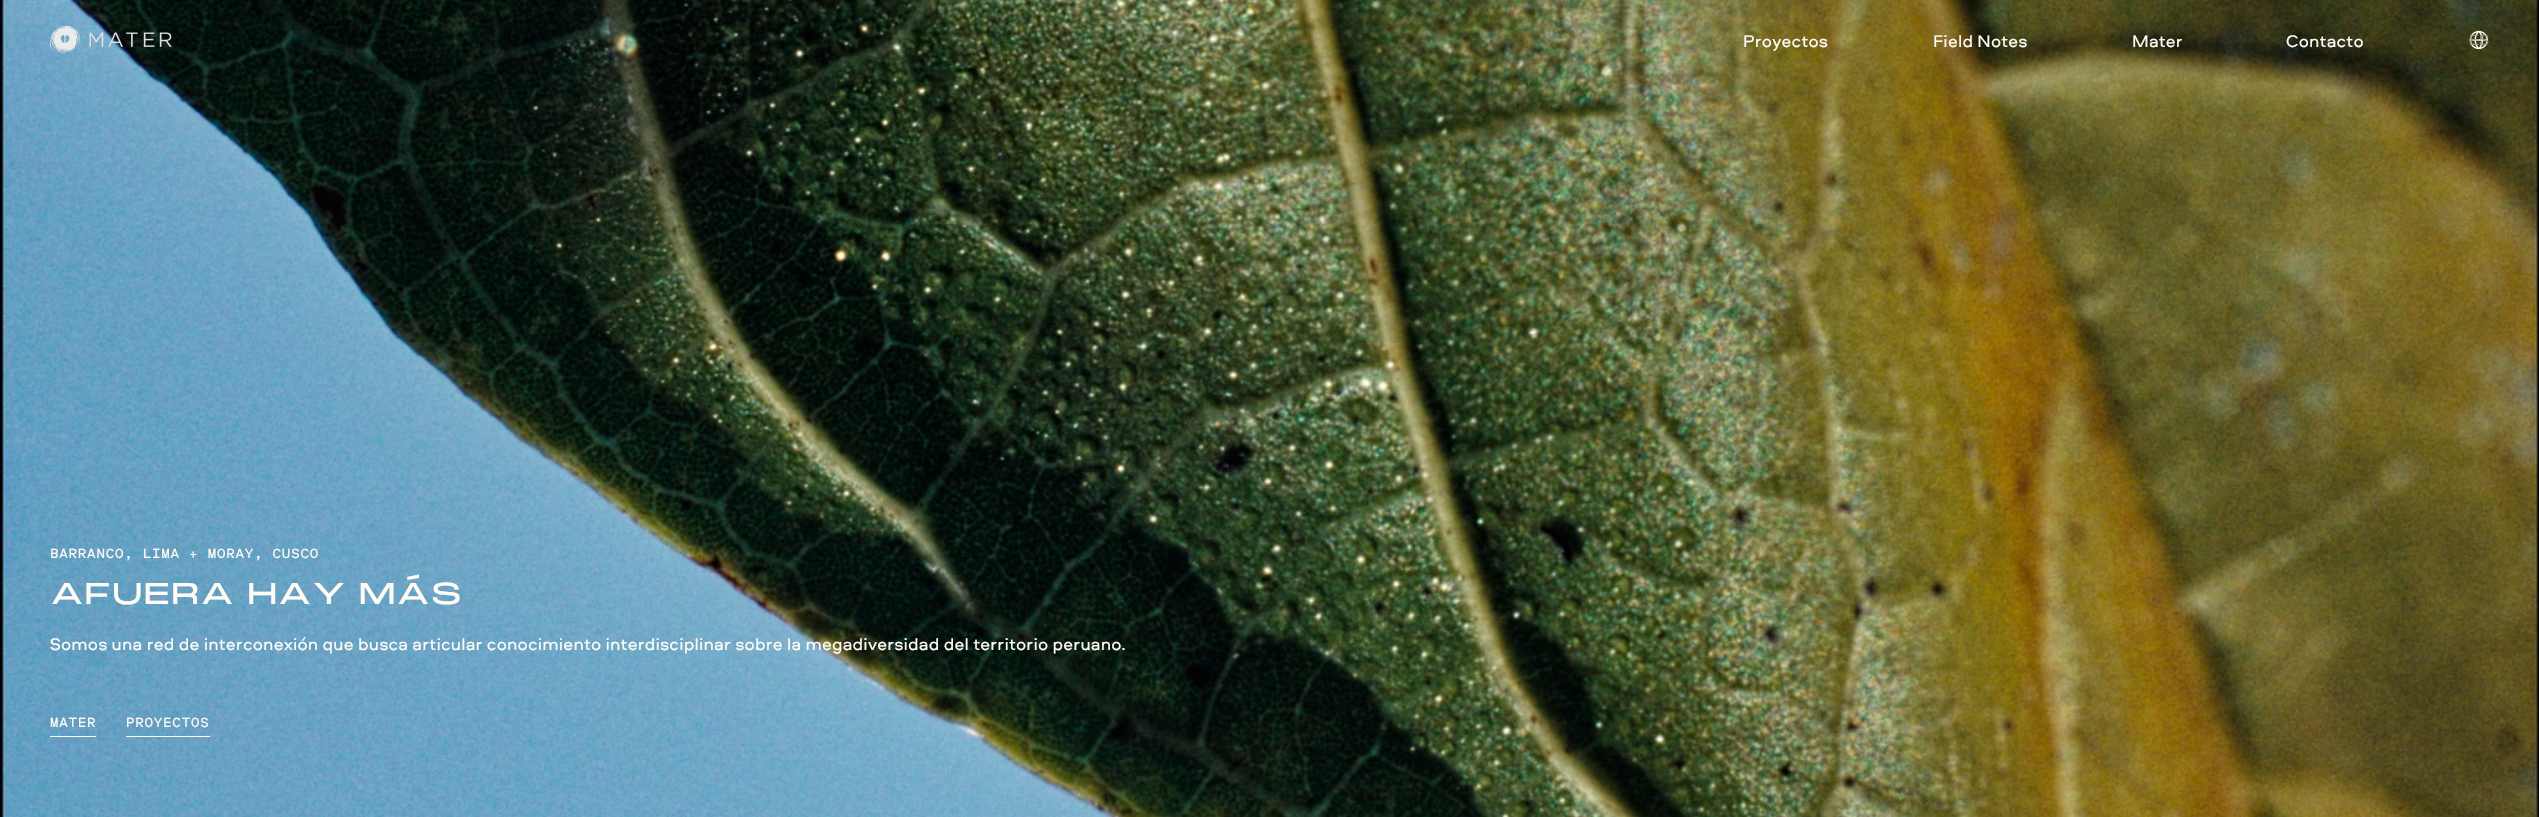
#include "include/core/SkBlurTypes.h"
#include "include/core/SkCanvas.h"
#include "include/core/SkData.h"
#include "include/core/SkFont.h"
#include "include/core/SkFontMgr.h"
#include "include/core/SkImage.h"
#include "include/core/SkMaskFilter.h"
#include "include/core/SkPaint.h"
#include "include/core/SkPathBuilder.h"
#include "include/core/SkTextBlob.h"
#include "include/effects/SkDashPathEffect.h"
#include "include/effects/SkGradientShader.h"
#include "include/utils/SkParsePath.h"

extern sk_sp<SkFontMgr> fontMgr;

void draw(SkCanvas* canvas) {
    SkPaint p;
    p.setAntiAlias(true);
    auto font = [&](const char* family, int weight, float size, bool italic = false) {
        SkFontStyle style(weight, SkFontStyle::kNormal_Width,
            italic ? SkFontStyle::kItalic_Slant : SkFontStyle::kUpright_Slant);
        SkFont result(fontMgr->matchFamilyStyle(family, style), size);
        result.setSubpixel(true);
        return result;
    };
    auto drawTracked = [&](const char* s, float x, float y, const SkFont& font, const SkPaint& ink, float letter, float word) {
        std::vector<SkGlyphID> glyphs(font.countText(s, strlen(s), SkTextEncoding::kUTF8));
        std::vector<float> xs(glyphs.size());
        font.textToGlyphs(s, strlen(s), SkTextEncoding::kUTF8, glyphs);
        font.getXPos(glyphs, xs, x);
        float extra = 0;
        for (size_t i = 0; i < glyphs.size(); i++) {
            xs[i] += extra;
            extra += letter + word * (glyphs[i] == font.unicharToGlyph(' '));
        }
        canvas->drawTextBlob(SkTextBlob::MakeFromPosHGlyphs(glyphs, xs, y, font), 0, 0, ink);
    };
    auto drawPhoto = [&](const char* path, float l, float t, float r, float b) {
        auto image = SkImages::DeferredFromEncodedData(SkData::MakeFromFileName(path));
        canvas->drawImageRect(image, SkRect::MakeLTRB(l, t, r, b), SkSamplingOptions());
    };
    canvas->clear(0xFFFFFFFF);
    drawPhoto("media/3.png", 0, 0, 2539, 817);
    drawPhoto("media/1.png", 50, 25, 172, 54);
    auto font1 = font("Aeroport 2", 400, 17.5f);
    p.setColor(0xFFFFFCF5);
    {
        const struct { const char* s; float x, y; } items[] = {
            {"Proyectos", 1743, 47},
            {"Field Notes", 1933, 47},
            {"Mater", 2132, 47},
            {"Contacto", 2286, 47},
        };
        for (auto [s, x, y] : items) {
            drawTracked(s, x, y, font1, p, 0.18f, 0);
        }
    }
    drawPhoto("media/2.png", 2469, 30, 2488, 50);
    auto font2 = font("Liberation Sans", 400, 15);
    p.setColor(0xFF9B9A85);
    canvas->drawString("ES", 2469, 45, font2, p);
    auto font3 = font("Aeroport", 400, 13.75f);
    p.setColor(0xFFFFFCF5);
    drawTracked("BARRANCO, LIMA + MORAY, CUSCO", 50, 558, font3, p, 0.75f, 0);
    auto font4 = font("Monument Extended", 400, 30);
    drawTracked("AFUERA HAY MÁS", 50, 604, font4, p, 0.25f, 0);
    drawTracked("Somos una red de interconexión que busca articular conocimiento interdisciplinar sobre la megadiversidad del territorio peruano.", 50, 650, font1, p, 0.18f, 0);
    drawTracked("MATER", 50, 727, font3, p, 0.75f, 0);
    canvas->drawRect(SkRect::MakeLTRB(50, 736, 96, 737), p);
    drawTracked("PROYECTOS", 126, 727, font3, p, 0.75f, 0);
    canvas->drawRect(SkRect::MakeLTRB(126, 736, 210, 737), p);
}
